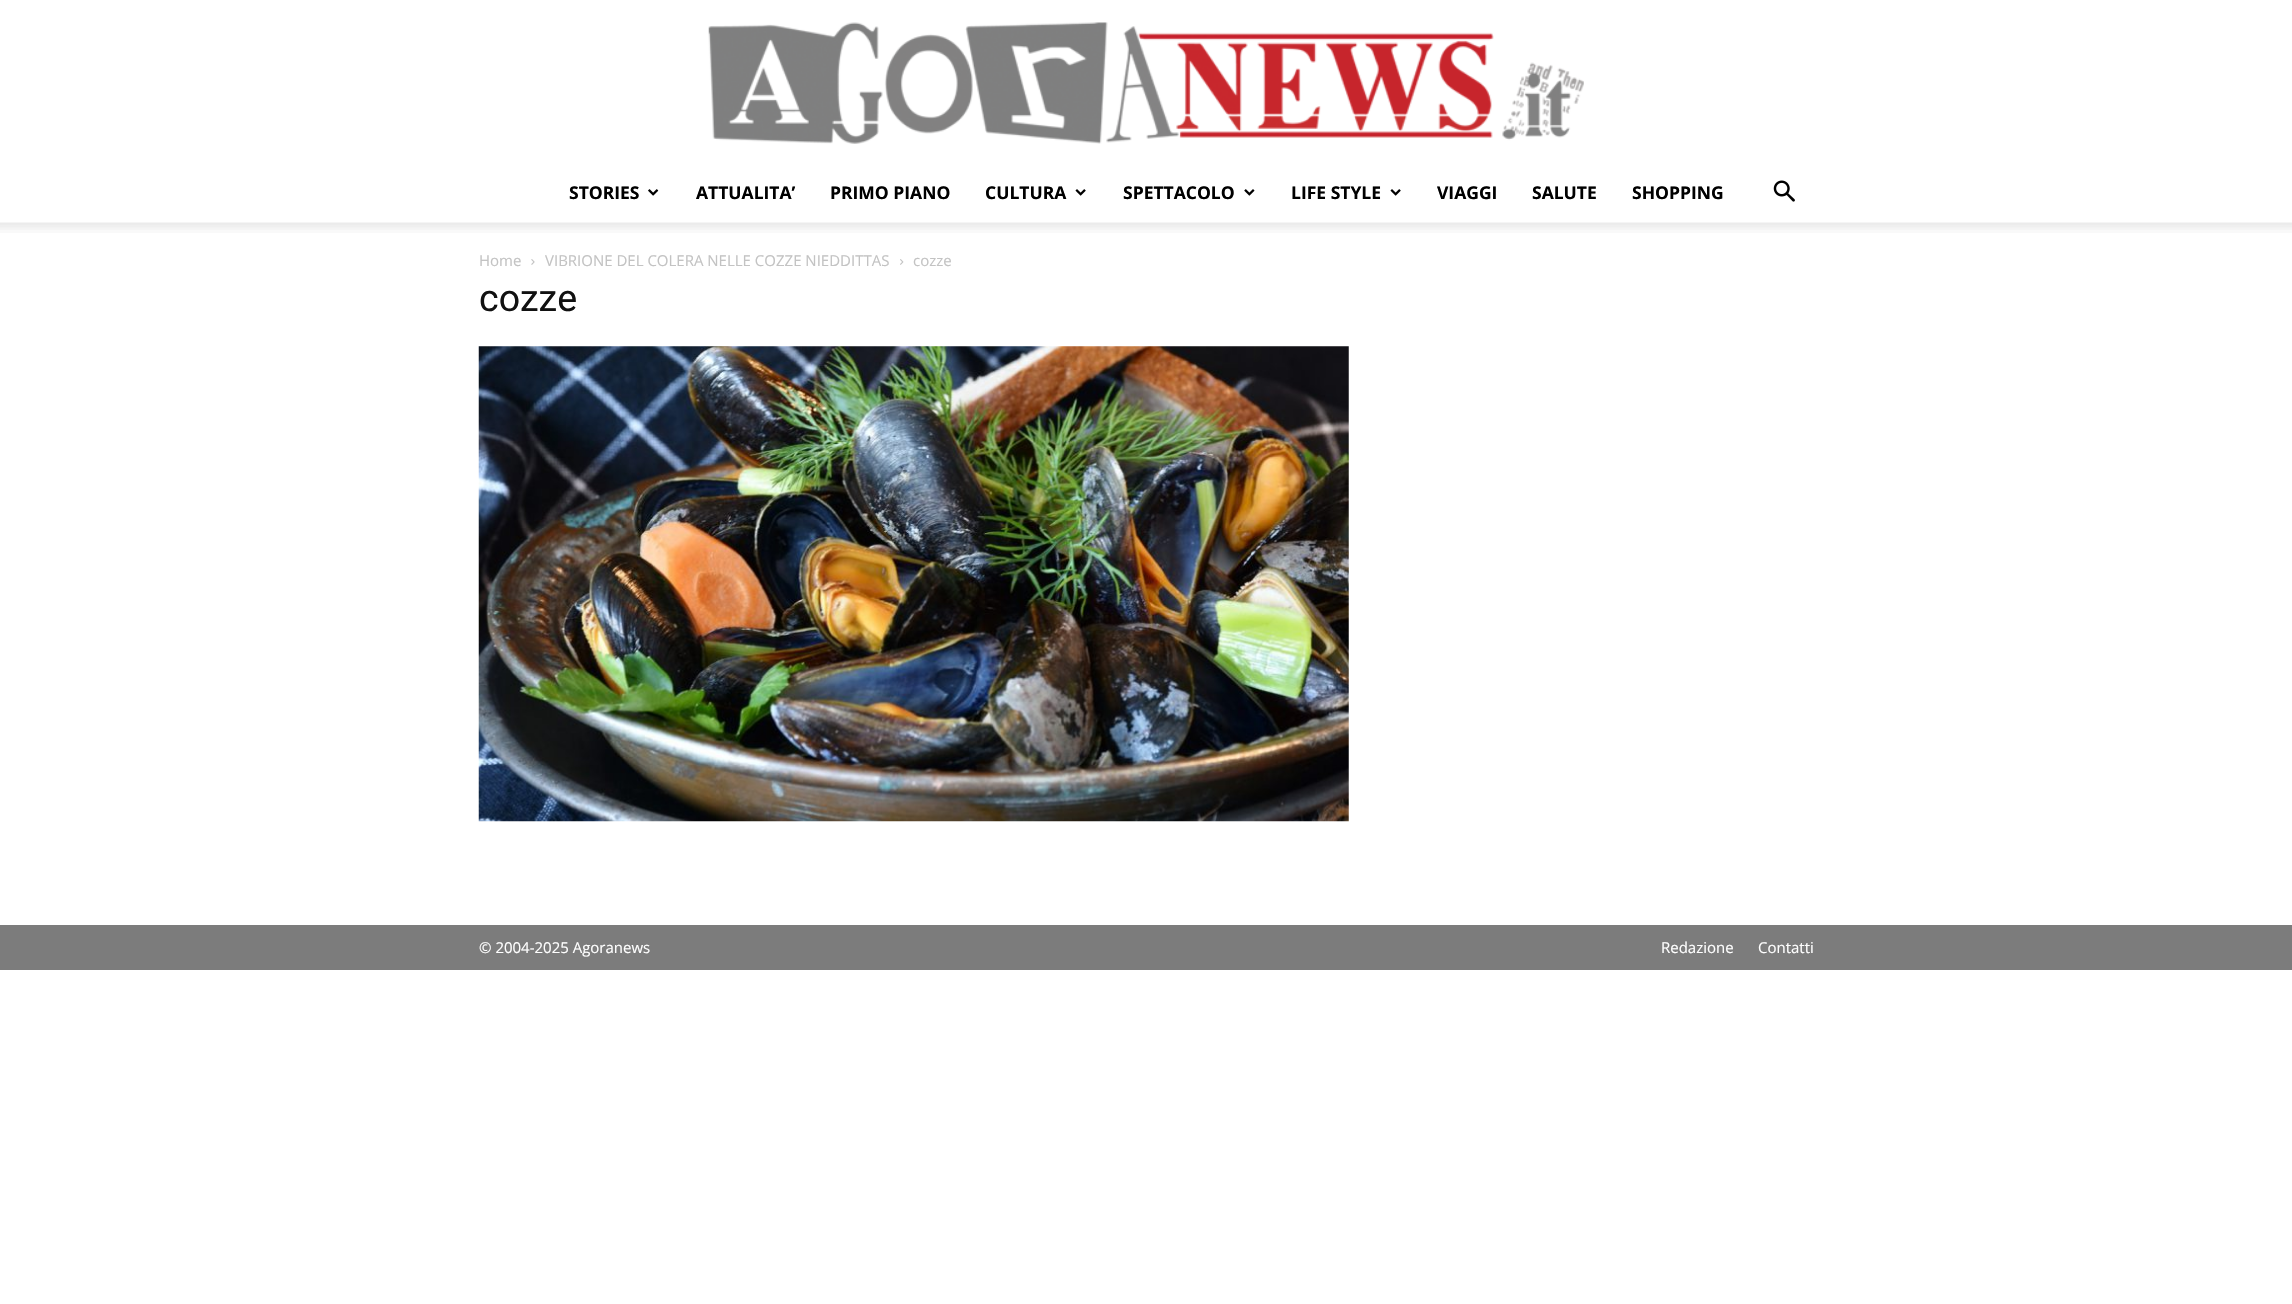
#include "include/core/SkBlurTypes.h"
#include "include/core/SkCanvas.h"
#include "include/core/SkData.h"
#include "include/core/SkFont.h"
#include "include/core/SkFontMgr.h"
#include "include/core/SkImage.h"
#include "include/core/SkMaskFilter.h"
#include "include/core/SkPaint.h"
#include "include/core/SkPathBuilder.h"
#include "include/core/SkTextBlob.h"
#include "include/effects/SkDashPathEffect.h"
#include "include/effects/SkGradientShader.h"
#include "include/utils/SkParsePath.h"

extern sk_sp<SkFontMgr> fontMgr;

void draw(SkCanvas* canvas) {
    SkPaint p;
    p.setAntiAlias(true);
    auto font = [&](const char* family, int weight, float size, bool italic = false) {
        SkFontStyle style(weight, SkFontStyle::kNormal_Width,
            italic ? SkFontStyle::kItalic_Slant : SkFontStyle::kUpright_Slant);
        SkFont result(fontMgr->matchFamilyStyle(family, style), size);
        result.setSubpixel(true);
        return result;
    };
    auto drawPhoto = [&](const char* path, float l, float t, float r, float b) {
        auto image = SkImages::DeferredFromEncodedData(SkData::MakeFromFileName(path));
        canvas->drawImageRect(image, SkRect::MakeLTRB(l, t, r, b), SkSamplingOptions());
    };
    canvas->clear(0xFFFFFFFF);
    drawPhoto("media/1.png", 708, 22, 1584, 144);
    auto font1 = font("Open Sans", 700, 17.5f);
    p.setColor(0xFF000000);
    canvas->drawString("STORIES", 569, 199, font1, p);
    drawPhoto("media/2.png", 648, 189, 659, 196);
    {
        const struct { const char* s; float x, y; } items[] = {
            {"ATTUALITA’", 696, 199},
            {"PRIMO PIANO", 830, 199},
            {"CULTURA", 985, 199},
        };
        for (auto [s, x, y] : items) {
            canvas->drawString(s, x, y, font1, p);
        }
    }
    drawPhoto("media/3.png", 1075, 189, 1086, 196);
    canvas->drawString("SPETTACOLO", 1123, 199, font1, p);
    drawPhoto("media/4.png", 1244, 189, 1255, 196);
    canvas->drawString("LIFE STYLE", 1291, 199, font1, p);
    drawPhoto("media/3.png", 1390, 189, 1401, 196);
    {
        const struct { const char* s; float x, y; } items[] = {
            {"VIAGGI", 1437, 199},
            {"SALUTE", 1532, 199},
            {"SHOPPING", 1632, 199},
        };
        for (auto [s, x, y] : items) {
            canvas->drawString(s, x, y, font1, p);
        }
    }
    drawPhoto("media/5.png", 1773, 180, 1795, 202);
    drawPhoto("media/6.png", 0, 222, 2292, 233);
    auto font2 = font("Open Sans", 400, 15);
    p.setColor(0xFFC3C3C3);
    canvas->drawString("Home", 479, 266, font2, p);
    drawPhoto("media/7.png", 531, 259, 535, 265);
    canvas->drawString("VIBRIONE DEL COLERA NELLE COZZE NIEDDITTAS", 545, 266, font2, p);
    drawPhoto("media/8.png", 900, 259, 904, 265);
    canvas->drawString("cozze", 913, 266, font2, p);
    auto font3 = font("Roboto", 400, 37.5f);
    p.setColor(0xFF111111);
    canvas->drawString("cozze", 479, 311, font3, p);
    drawPhoto("media/9.png", 478, 346, 1349, 822);
    p.setColor(0xFF7C7C7C);
    canvas->drawRect(SkRect::MakeLTRB(0, 925, 2292, 970), p);
    p.setColor(0xFFFFFFFF);
    {
        const struct { const char* s; float x, y; } items[] = {
            {"© 2004-2025 Agoranews", 479, 953},
            {"Redazione", 1661, 953},
            {"Contatti", 1758, 953},
        };
        for (auto [s, x, y] : items) {
            canvas->drawString(s, x, y, font2, p);
        }
    }
}
